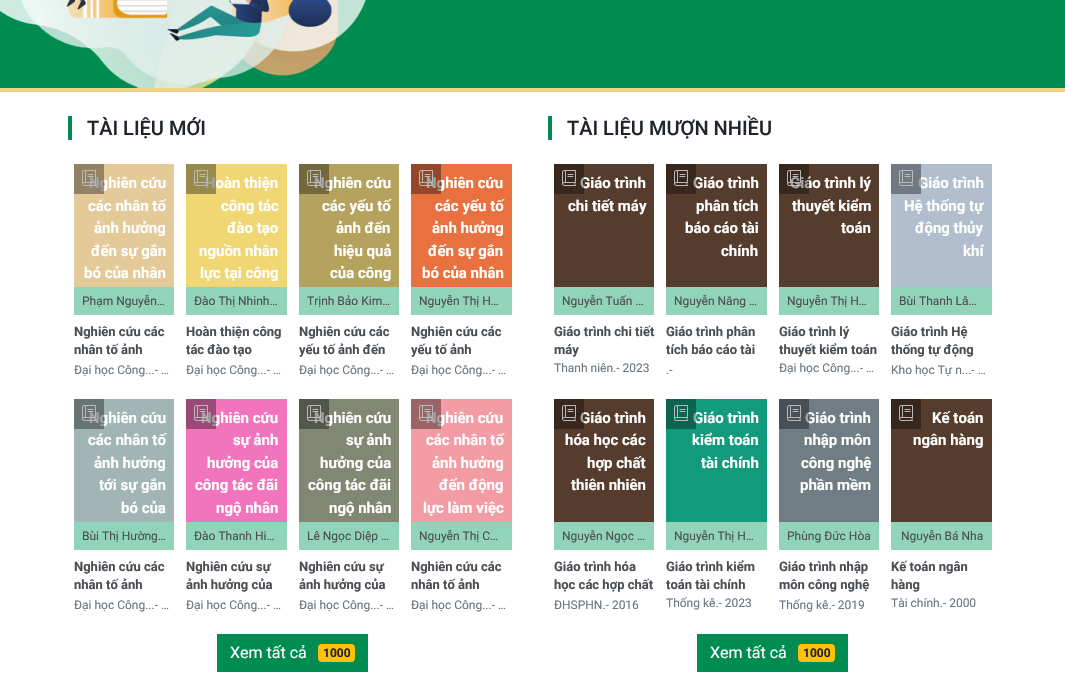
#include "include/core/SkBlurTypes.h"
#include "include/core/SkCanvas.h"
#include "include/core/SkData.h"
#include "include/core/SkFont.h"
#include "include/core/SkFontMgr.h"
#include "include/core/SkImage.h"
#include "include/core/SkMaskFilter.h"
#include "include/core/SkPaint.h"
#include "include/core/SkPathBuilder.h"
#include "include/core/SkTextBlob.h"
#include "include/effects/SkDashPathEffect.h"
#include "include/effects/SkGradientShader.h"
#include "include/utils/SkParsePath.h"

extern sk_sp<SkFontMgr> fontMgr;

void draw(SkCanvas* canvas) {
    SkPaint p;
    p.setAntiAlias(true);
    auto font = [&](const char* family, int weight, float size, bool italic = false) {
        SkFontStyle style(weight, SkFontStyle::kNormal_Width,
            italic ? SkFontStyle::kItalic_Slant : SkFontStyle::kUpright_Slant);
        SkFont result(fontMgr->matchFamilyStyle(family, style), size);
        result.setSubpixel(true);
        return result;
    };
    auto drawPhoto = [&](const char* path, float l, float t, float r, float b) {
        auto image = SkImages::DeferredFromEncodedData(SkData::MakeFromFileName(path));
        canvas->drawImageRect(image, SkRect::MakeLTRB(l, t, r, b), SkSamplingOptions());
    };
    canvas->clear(0xFFFFFFFF);
    p.setColor(0xFF008B51);
    canvas->drawRect(SkRect::MakeLTRB(0, 0, 1065, 88), p);
    drawPhoto("media/1.png", 0, 0, 366, 88);
    p.setColor(0xFFEFD186);
    canvas->drawRect(SkRect::MakeLTRB(0, 88, 1065, 92), p);
    p.setColor(0xFF008B51);
    canvas->drawRect(SkRect::MakeLTRB(68, 116, 72, 140), p);
    auto font1 = font("Roboto", 500, 20);
    p.setColor(0xFF212529);
    canvas->drawString("TÀI LIỆU MỚI", 87, 135, font1, p);
    p.setColor(0xFFE4CA99);
    canvas->drawRect(SkRect::MakeLTRB(74, 164, 174, 287), p);
    auto font2 = font("Roboto", 700, 15);
    p.setColor(0xFFFFFFFF);
    canvas->drawString("Nghiên cứu", 89, 188, font2, p);
    p.setColor(0x5C000000);
    canvas->drawRect(SkRect::MakeLTRB(74, 164, 104, 194), p);
    drawPhoto("media/2.png", 82, 170, 96, 186);
    p.setColor(0xFFFFFFFF);
    {
        const struct { const char* s; float x, y; } items[] = {
            {"các nhân tố", 88, 211},
            {"ảnh hưởng", 94, 233},
            {"đến sự gắn", 91, 256},
            {"bó của nhân", 84, 278},
        };
        for (auto [s, x, y] : items) {
            canvas->drawString(s, x, y, font2, p);
        }
    }
    p.setColor(0xFF92D4B9);
    canvas->drawRect(SkRect::MakeLTRB(74, 287, 174, 315), p);
    auto font3 = font("Roboto", 400, 12);
    p.setColor(0xFF4A4E52);
    canvas->drawString("Phạm Nguyễn…", 82, 305, font3, p);
    auto font4 = font("Roboto", 700, 13);
    canvas->drawString("Nghiên cứu các", 74, 336, font4, p);
    canvas->drawString("nhân tố ảnh", 74, 354, font4, p);
    p.setColor(0xFF6C757D);
    canvas->drawString("Đại học Công...- …", 74, 374, font3, p);
    p.setColor(0xFFF0D774);
    canvas->drawRect(SkRect::MakeLTRB(186, 164, 287, 287), p);
    p.setColor(0xFFFFFFFF);
    canvas->drawString("Hoàn thiện", 205, 188, font2, p);
    p.setColor(0x5C000000);
    canvas->drawRect(SkRect::MakeLTRB(186, 164, 216, 194), p);
    drawPhoto("media/3.png", 194, 170, 208, 186);
    p.setColor(0xFFFFFFFF);
    {
        const struct { const char* s; float x, y; } items[] = {
            {"công tác", 221, 211},
            {"đào tạo", 227, 233},
            {"nguồn nhân", 199, 256},
            {"lực tại công", 200, 278},
        };
        for (auto [s, x, y] : items) {
            canvas->drawString(s, x, y, font2, p);
        }
    }
    p.setColor(0xFF92D4B9);
    canvas->drawRect(SkRect::MakeLTRB(186, 287, 287, 315), p);
    p.setColor(0xFF4A4E52);
    canvas->drawString("Đào Thị Nhinh…", 194, 305, font3, p);
    canvas->drawString("Hoàn thiện công", 186, 336, font4, p);
    canvas->drawString("tác đào tạo", 186, 354, font4, p);
    p.setColor(0xFF6C757D);
    canvas->drawString("Đại học Công...- …", 186, 374, font3, p);
    p.setColor(0xFFB5A25D);
    canvas->drawRect(SkRect::MakeLTRB(299, 164, 399, 287), p);
    p.setColor(0xFFFFFFFF);
    canvas->drawString("Nghiên cứu", 314, 188, font2, p);
    p.setColor(0x5C000000);
    canvas->drawRect(SkRect::MakeLTRB(299, 164, 329, 194), p);
    drawPhoto("media/4.png", 307, 170, 321, 186);
    p.setColor(0xFFFFFFFF);
    {
        const struct { const char* s; float x, y; } items[] = {
            {"các yếu tố", 322, 211},
            {"ảnh đến", 336, 233},
            {"hiệu quả", 334, 256},
            {"của công", 330, 278},
        };
        for (auto [s, x, y] : items) {
            canvas->drawString(s, x, y, font2, p);
        }
    }
    p.setColor(0xFF92D4B9);
    canvas->drawRect(SkRect::MakeLTRB(299, 287, 399, 315), p);
    p.setColor(0xFF4A4E52);
    canvas->drawString("Trịnh Bảo Kim…", 307, 305, font3, p);
    canvas->drawString("Nghiên cứu các", 299, 336, font4, p);
    canvas->drawString("yếu tố ảnh đến", 299, 354, font4, p);
    p.setColor(0xFF6C757D);
    canvas->drawString("Đại học Công...- …", 299, 374, font3, p);
    p.setColor(0xFFE97140);
    canvas->drawRect(SkRect::MakeLTRB(411, 164, 512, 287), p);
    p.setColor(0xFFFFFFFF);
    canvas->drawString("Nghiên cứu", 426, 188, font2, p);
    p.setColor(0x5C000000);
    canvas->drawRect(SkRect::MakeLTRB(411, 164, 441, 194), p);
    drawPhoto("media/5.png", 419, 170, 433, 186);
    p.setColor(0xFFFFFFFF);
    {
        const struct { const char* s; float x, y; } items[] = {
            {"các yếu tố", 435, 211},
            {"ảnh hưởng", 432, 233},
            {"đến sự gắn", 428, 256},
            {"bó của nhân", 422, 278},
        };
        for (auto [s, x, y] : items) {
            canvas->drawString(s, x, y, font2, p);
        }
    }
    p.setColor(0xFF92D4B9);
    canvas->drawRect(SkRect::MakeLTRB(411, 287, 512, 315), p);
    p.setColor(0xFF4A4E52);
    canvas->drawString("Nguyễn Thị H…", 419, 305, font3, p);
    canvas->drawString("Nghiên cứu các", 411, 336, font4, p);
    canvas->drawString("yếu tố ảnh", 411, 354, font4, p);
    p.setColor(0xFF6C757D);
    canvas->drawString("Đại học Công...- …", 411, 374, font3, p);
    p.setColor(0xFFA1B6B4);
    canvas->drawRect(SkRect::MakeLTRB(74, 399, 174, 522), p);
    p.setColor(0xFFFFFFFF);
    canvas->drawString("Nghiên cứu", 89, 423, font2, p);
    p.setColor(0x5C000000);
    canvas->drawRect(SkRect::MakeLTRB(74, 399, 104, 429), p);
    drawPhoto("media/6.png", 82, 405, 96, 421);
    p.setColor(0xFFFFFFFF);
    {
        const struct { const char* s; float x, y; } items[] = {
            {"các nhân tố", 88, 445},
            {"ảnh hưởng", 94, 468},
            {"tới sự gắn", 99, 490},
            {"bó của", 121, 513},
        };
        for (auto [s, x, y] : items) {
            canvas->drawString(s, x, y, font2, p);
        }
    }
    p.setColor(0xFF92D4B9);
    canvas->drawRect(SkRect::MakeLTRB(74, 522, 174, 550), p);
    p.setColor(0xFF4A4E52);
    canvas->drawString("Bùi Thị Hường…", 82, 540, font3, p);
    canvas->drawString("Nghiên cứu các", 74, 571, font4, p);
    canvas->drawString("nhân tố ảnh", 74, 589, font4, p);
    p.setColor(0xFF6C757D);
    canvas->drawString("Đại học Công...- …", 74, 609, font3, p);
    p.setColor(0xFFF274BC);
    canvas->drawRect(SkRect::MakeLTRB(186, 399, 287, 522), p);
    p.setColor(0xFFFFFFFF);
    canvas->drawString("Nghiên cứu", 201, 423, font2, p);
    p.setColor(0x5C000000);
    canvas->drawRect(SkRect::MakeLTRB(186, 399, 216, 429), p);
    drawPhoto("media/7.png", 194, 405, 208, 421);
    p.setColor(0xFFFFFFFF);
    {
        const struct { const char* s; float x, y; } items[] = {
            {"sự ảnh", 233, 445},
            {"hưởng của", 207, 468},
            {"công tác đãi", 195, 490},
            {"ngộ nhân", 216, 513},
        };
        for (auto [s, x, y] : items) {
            canvas->drawString(s, x, y, font2, p);
        }
    }
    p.setColor(0xFF92D4B9);
    canvas->drawRect(SkRect::MakeLTRB(186, 522, 287, 550), p);
    p.setColor(0xFF4A4E52);
    canvas->drawString("Đào Thanh Hi…", 194, 540, font3, p);
    canvas->drawString("Nghiên cứu sự", 186, 571, font4, p);
    canvas->drawString("ảnh hưởng của", 186, 589, font4, p);
    p.setColor(0xFF6C757D);
    canvas->drawString("Đại học Công...- …", 186, 609, font3, p);
    p.setColor(0xFF818773);
    canvas->drawRect(SkRect::MakeLTRB(299, 399, 399, 522), p);
    p.setColor(0xFFFFFFFF);
    canvas->drawString("Nghiên cứu", 314, 423, font2, p);
    p.setColor(0x5C000000);
    canvas->drawRect(SkRect::MakeLTRB(299, 399, 329, 429), p);
    drawPhoto("media/8.png", 307, 405, 321, 421);
    p.setColor(0xFFFFFFFF);
    {
        const struct { const char* s; float x, y; } items[] = {
            {"sự ảnh", 346, 445},
            {"hưởng của", 320, 468},
            {"công tác đãi", 308, 490},
            {"ngộ nhân", 329, 513},
        };
        for (auto [s, x, y] : items) {
            canvas->drawString(s, x, y, font2, p);
        }
    }
    p.setColor(0xFF92D4B9);
    canvas->drawRect(SkRect::MakeLTRB(299, 522, 399, 550), p);
    p.setColor(0xFF4A4E52);
    canvas->drawString("Lê Ngọc Diệp …", 307, 540, font3, p);
    canvas->drawString("Nghiên cứu sự", 299, 571, font4, p);
    canvas->drawString("ảnh hưởng của", 299, 589, font4, p);
    p.setColor(0xFF6C757D);
    canvas->drawString("Đại học Công...- …", 299, 609, font3, p);
    p.setColor(0xFFF39CA4);
    canvas->drawRect(SkRect::MakeLTRB(411, 399, 512, 522), p);
    p.setColor(0xFFFFFFFF);
    canvas->drawString("Nghiên cứu", 426, 423, font2, p);
    p.setColor(0x5C000000);
    canvas->drawRect(SkRect::MakeLTRB(411, 399, 441, 429), p);
    drawPhoto("media/9.png", 419, 405, 433, 421);
    p.setColor(0xFFFFFFFF);
    {
        const struct { const char* s; float x, y; } items[] = {
            {"các nhân tố", 426, 445},
            {"ảnh hưởng", 432, 468},
            {"đến động", 439, 490},
            {"lực làm việc", 423, 513},
        };
        for (auto [s, x, y] : items) {
            canvas->drawString(s, x, y, font2, p);
        }
    }
    p.setColor(0xFF92D4B9);
    canvas->drawRect(SkRect::MakeLTRB(411, 522, 512, 550), p);
    p.setColor(0xFF4A4E52);
    canvas->drawString("Nguyễn Thị C…", 419, 540, font3, p);
    canvas->drawString("Nghiên cứu các", 411, 571, font4, p);
    canvas->drawString("nhân tố ảnh", 411, 589, font4, p);
    p.setColor(0xFF6C757D);
    canvas->drawString("Đại học Công...- …", 411, 609, font3, p);
    p.setColor(0xFF008B51);
    canvas->drawRect(SkRect::MakeLTRB(217, 634, 368, 672), p);
    auto font5 = font("Roboto", 400, 16);
    p.setColor(0xFFFFFFFF);
    canvas->drawString("Xem tất cả", 230, 658, font5, p);
    p.setColor(0xFFFFC107);
    canvas->drawRoundRect(SkRect::MakeLTRB(318, 644, 355, 662), 4, 4, p);
    auto font6 = font("Roboto", 700, 12);
    p.setColor(0xFF212529);
    canvas->drawString("1000", 323, 657, font6, p);
    p.setColor(0xFF008B51);
    canvas->drawRect(SkRect::MakeLTRB(548, 116, 552, 140), p);
    p.setColor(0xFF212529);
    canvas->drawString("TÀI LIỆU MƯỢN NHIỀU", 567, 135, font1, p);
    p.setColor(0xFF563C2D);
    canvas->drawRect(SkRect::MakeLTRB(554, 164, 654, 287), p);
    p.setColor(0xFFFFFFFF);
    canvas->drawString("Giáo trình", 580, 188, font2, p);
    p.setColor(0x5C000000);
    canvas->drawRect(SkRect::MakeLTRB(554, 164, 584, 194), p);
    drawPhoto("media/10.png", 562, 170, 576, 186);
    p.setColor(0xFFFFFFFF);
    canvas->drawString("chi tiết máy", 568, 211, font2, p);
    p.setColor(0xFF92D4B9);
    canvas->drawRect(SkRect::MakeLTRB(554, 287, 654, 315), p);
    p.setColor(0xFF4A4E52);
    canvas->drawString("Nguyễn Tuấn …", 562, 305, font3, p);
    canvas->drawString("Giáo trình chi tiết", 554, 336, font4, p);
    canvas->drawString("máy", 554, 354, font4, p);
    p.setColor(0xFF6C757D);
    canvas->drawString("Thanh niên.- 2023", 554, 372, font3, p);
    p.setColor(0xFF563C2D);
    canvas->drawRect(SkRect::MakeLTRB(666, 164, 767, 287), p);
    p.setColor(0xFFFFFFFF);
    canvas->drawString("Giáo trình", 693, 188, font2, p);
    p.setColor(0x5C000000);
    canvas->drawRect(SkRect::MakeLTRB(666, 164, 696, 194), p);
    drawPhoto("media/10.png", 674, 170, 688, 186);
    p.setColor(0xFFFFFFFF);
    {
        const struct { const char* s; float x, y; } items[] = {
            {"phân tích", 696, 211},
            {"báo cáo tài", 685, 233},
            {"chính", 721, 256},
        };
        for (auto [s, x, y] : items) {
            canvas->drawString(s, x, y, font2, p);
        }
    }
    p.setColor(0xFF92D4B9);
    canvas->drawRect(SkRect::MakeLTRB(666, 287, 767, 315), p);
    p.setColor(0xFF4A4E52);
    canvas->drawString("Nguyễn Năng …", 674, 305, font3, p);
    canvas->drawString("Giáo trình phân", 666, 336, font4, p);
    canvas->drawString("tích báo cáo tài", 666, 354, font4, p);
    p.setColor(0xFF6C757D);
    canvas->drawString(".-", 666, 374, font3, p);
    p.setColor(0xFF563C2D);
    canvas->drawRect(SkRect::MakeLTRB(779, 164, 879, 287), p);
    p.setColor(0xFFFFFFFF);
    canvas->drawString("Giáo trình lý", 790, 188, font2, p);
    p.setColor(0x5C000000);
    canvas->drawRect(SkRect::MakeLTRB(779, 164, 809, 194), p);
    drawPhoto("media/11.png", 787, 170, 801, 186);
    p.setColor(0xFFFFFFFF);
    canvas->drawString("thuyết kiểm", 792, 211, font2, p);
    canvas->drawString("toán", 841, 233, font2, p);
    p.setColor(0xFF92D4B9);
    canvas->drawRect(SkRect::MakeLTRB(779, 287, 879, 315), p);
    p.setColor(0xFF4A4E52);
    canvas->drawString("Nguyễn Thị H…", 787, 305, font3, p);
    canvas->drawString("Giáo trình lý", 779, 336, font4, p);
    canvas->drawString("thuyết kiểm toán", 779, 354, font4, p);
    p.setColor(0xFF6C757D);
    canvas->drawString("Đại học Công...- …", 779, 372, font3, p);
    p.setColor(0xFFB1BECD);
    canvas->drawRect(SkRect::MakeLTRB(891, 164, 992, 287), p);
    p.setColor(0xFFFFFFFF);
    canvas->drawString("Giáo trình", 918, 188, font2, p);
    p.setColor(0x5C000000);
    canvas->drawRect(SkRect::MakeLTRB(891, 164, 921, 194), p);
    drawPhoto("media/12.png", 899, 170, 913, 186);
    p.setColor(0xFFFFFFFF);
    {
        const struct { const char* s; float x, y; } items[] = {
            {"Hệ thống tự", 904, 211},
            {"động thủy", 915, 233},
            {"khí", 963, 256},
        };
        for (auto [s, x, y] : items) {
            canvas->drawString(s, x, y, font2, p);
        }
    }
    p.setColor(0xFF92D4B9);
    canvas->drawRect(SkRect::MakeLTRB(891, 287, 992, 315), p);
    p.setColor(0xFF4A4E52);
    canvas->drawString("Bùi Thanh Lâ…", 899, 305, font3, p);
    canvas->drawString("Giáo trình Hệ", 891, 336, font4, p);
    canvas->drawString("thống tự động", 891, 354, font4, p);
    p.setColor(0xFF6C757D);
    canvas->drawString("Kho học Tự n...- …", 891, 374, font3, p);
    p.setColor(0xFF563C2D);
    canvas->drawRect(SkRect::MakeLTRB(554, 399, 654, 522), p);
    p.setColor(0xFFFFFFFF);
    canvas->drawString("Giáo trình", 580, 423, font2, p);
    p.setColor(0x5C000000);
    canvas->drawRect(SkRect::MakeLTRB(554, 399, 584, 429), p);
    drawPhoto("media/10.png", 562, 405, 576, 421);
    p.setColor(0xFFFFFFFF);
    {
        const struct { const char* s; float x, y; } items[] = {
            {"hóa học các", 565, 445},
            {"hợp chất", 587, 468},
            {"thiên nhiên", 571, 490},
        };
        for (auto [s, x, y] : items) {
            canvas->drawString(s, x, y, font2, p);
        }
    }
    p.setColor(0xFF92D4B9);
    canvas->drawRect(SkRect::MakeLTRB(554, 522, 654, 550), p);
    p.setColor(0xFF4A4E52);
    canvas->drawString("Nguyễn Ngọc …", 562, 540, font3, p);
    canvas->drawString("Giáo trình hóa", 554, 571, font4, p);
    canvas->drawString("học các hợp chất", 554, 589, font4, p);
    p.setColor(0xFF6C757D);
    canvas->drawString("ĐHSPHN.- 2016", 554, 609, font3, p);
    p.setColor(0xFF129A7D);
    canvas->drawRect(SkRect::MakeLTRB(666, 399, 767, 522), p);
    p.setColor(0xFFFFFFFF);
    canvas->drawString("Giáo trình", 693, 423, font2, p);
    p.setColor(0x5C000000);
    canvas->drawRect(SkRect::MakeLTRB(666, 399, 696, 429), p);
    drawPhoto("media/13.png", 674, 405, 688, 421);
    p.setColor(0xFFFFFFFF);
    canvas->drawString("kiểm toán", 692, 445, font2, p);
    canvas->drawString("tài chính", 701, 468, font2, p);
    p.setColor(0xFF92D4B9);
    canvas->drawRect(SkRect::MakeLTRB(666, 522, 767, 550), p);
    p.setColor(0xFF4A4E52);
    canvas->drawString("Nguyễn Thị H…", 674, 540, font3, p);
    canvas->drawString("Giáo trình kiểm", 666, 571, font4, p);
    canvas->drawString("toán tài chính", 666, 589, font4, p);
    p.setColor(0xFF6C757D);
    canvas->drawString("Thống kê.- 2023", 666, 607, font3, p);
    p.setColor(0xFF717D84);
    canvas->drawRect(SkRect::MakeLTRB(779, 399, 879, 522), p);
    p.setColor(0xFFFFFFFF);
    canvas->drawString("Giáo trình", 805, 423, font2, p);
    p.setColor(0x5C000000);
    canvas->drawRect(SkRect::MakeLTRB(779, 399, 809, 429), p);
    drawPhoto("media/14.png", 787, 405, 801, 421);
    p.setColor(0xFFFFFFFF);
    {
        const struct { const char* s; float x, y; } items[] = {
            {"nhập môn", 804, 445},
            {"công nghệ", 801, 468},
            {"phần mềm", 800, 490},
        };
        for (auto [s, x, y] : items) {
            canvas->drawString(s, x, y, font2, p);
        }
    }
    p.setColor(0xFF92D4B9);
    canvas->drawRect(SkRect::MakeLTRB(779, 522, 879, 550), p);
    p.setColor(0xFF4A4E52);
    canvas->drawString("Phùng Đức Hòa", 787, 540, font3, p);
    canvas->drawString("Giáo trình nhập", 779, 571, font4, p);
    canvas->drawString("môn công nghệ", 779, 589, font4, p);
    p.setColor(0xFF6C757D);
    canvas->drawString("Thống kê.- 2019", 779, 609, font3, p);
    p.setColor(0xFF563C2D);
    canvas->drawRect(SkRect::MakeLTRB(891, 399, 992, 522), p);
    p.setColor(0xFF37261D);
    canvas->drawRect(SkRect::MakeLTRB(891, 399, 921, 429), p);
    drawPhoto("media/15.png", 899, 405, 913, 421);
    p.setColor(0xFFFFFFFF);
    canvas->drawString("Kế toán", 932, 423, font2, p);
    canvas->drawString("ngân hàng", 913, 445, font2, p);
    p.setColor(0xFF92D4B9);
    canvas->drawRect(SkRect::MakeLTRB(891, 522, 992, 550), p);
    p.setColor(0xFF4A4E52);
    canvas->drawString("Nguyễn Bá Nha", 901, 540, font3, p);
    canvas->drawString("Kế toán ngân", 891, 571, font4, p);
    canvas->drawString("hàng", 891, 589, font4, p);
    p.setColor(0xFF6C757D);
    canvas->drawString("Tài chính.- 2000", 891, 607, font3, p);
    p.setColor(0xFF008B51);
    canvas->drawRect(SkRect::MakeLTRB(697, 634, 848, 672), p);
    p.setColor(0xFFFFFFFF);
    canvas->drawString("Xem tất cả", 710, 658, font5, p);
    p.setColor(0xFFFFC107);
    canvas->drawRoundRect(SkRect::MakeLTRB(798, 644, 835, 662), 4, 4, p);
    p.setColor(0xFF212529);
    canvas->drawString("1000", 803, 657, font6, p);
}
